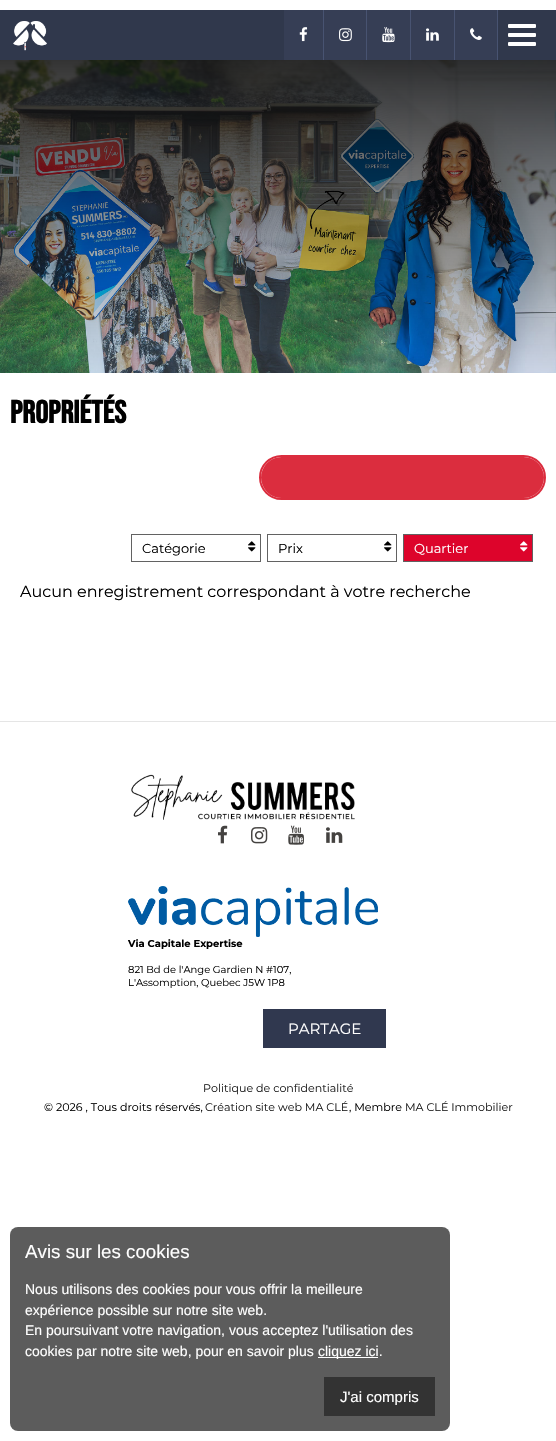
#include "include/core/SkBlurTypes.h"
#include "include/core/SkCanvas.h"
#include "include/core/SkData.h"
#include "include/core/SkFont.h"
#include "include/core/SkFontMgr.h"
#include "include/core/SkImage.h"
#include "include/core/SkMaskFilter.h"
#include "include/core/SkPaint.h"
#include "include/core/SkPathBuilder.h"
#include "include/core/SkTextBlob.h"
#include "include/effects/SkDashPathEffect.h"
#include "include/effects/SkGradientShader.h"
#include "include/utils/SkParsePath.h"

extern sk_sp<SkFontMgr> fontMgr;

void draw(SkCanvas* canvas) {
    SkPaint p;
    p.setAntiAlias(true);
    auto font = [&](const char* family, int weight, float size, bool italic = false) {
        SkFontStyle style(weight, SkFontStyle::kNormal_Width,
            italic ? SkFontStyle::kItalic_Slant : SkFontStyle::kUpright_Slant);
        SkFont result(fontMgr->matchFamilyStyle(family, style), size);
        result.setSubpixel(true);
        return result;
    };
    auto drawPhoto = [&](const char* path, float l, float t, float r, float b) {
        auto image = SkImages::DeferredFromEncodedData(SkData::MakeFromFileName(path));
        canvas->drawImageRect(image, SkRect::MakeLTRB(l, t, r, b), SkSamplingOptions());
    };
    canvas->clear(0xFFFFFFFF);
    p.setColor(0xFF30384C);
    canvas->drawRect(SkRect::MakeLTRB(0, 10, 556, 60), p);
    drawPhoto("media/1.png", 13, 21, 47, 51);
    p.setColor(0xFF363E55);
    canvas->drawRect(SkRect::MakeLTRB(284, 10, 323, 60), p);
    p.setColor(0xFF485371);
    canvas->drawRect(SkRect::MakeLTRB(323, 10, 324, 60), p);
    drawPhoto("media/2.png", 299, 27, 308, 42);
    p.setColor(0xFF363E55);
    canvas->drawRect(SkRect::MakeLTRB(324, 10, 366, 60), p);
    p.setColor(0xFF485371);
    canvas->drawRect(SkRect::MakeLTRB(366, 10, 367, 60), p);
    drawPhoto("media/3.png", 339, 28, 352, 42);
    p.setColor(0xFF363E55);
    canvas->drawRect(SkRect::MakeLTRB(367, 10, 410, 60), p);
    p.setColor(0xFF485371);
    canvas->drawRect(SkRect::MakeLTRB(410, 10, 411, 60), p);
    drawPhoto("media/4.png", 382, 27, 395, 43);
    p.setColor(0xFF363E55);
    canvas->drawRect(SkRect::MakeLTRB(411, 10, 454, 60), p);
    p.setColor(0xFF485371);
    canvas->drawRect(SkRect::MakeLTRB(454, 10, 455, 60), p);
    drawPhoto("media/5.png", 426, 28, 439, 41);
    p.setColor(0xFF363E55);
    canvas->drawRect(SkRect::MakeLTRB(455, 10, 497, 60), p);
    drawPhoto("media/6.png", 470, 28, 482, 40);
    p.setColor(0xFF485371);
    canvas->drawRect(SkRect::MakeLTRB(497, 10, 498, 60), p);
    p.setColor(0xFFFFFFFF);
    canvas->drawRoundRect(SkRect::MakeLTRB(508, 24, 536, 28), 1, 1, p);
    canvas->drawRoundRect(SkRect::MakeLTRB(508, 33, 536, 37), 1, 1, p);
    canvas->drawRoundRect(SkRect::MakeLTRB(508, 42, 536, 46), 1, 1, p);
    drawPhoto("media/7.png", 0, 60, 556, 373);
    auto font1 = font("Bebas Neue", 700, 32);
    p.setColor(0xFF000000);
    canvas->drawString("Propriétés", 10, 423, font1, p);
    p.setStyle(SkPaint::kStroke_Style);
    p.setStrokeWidth(2);
    p.setColor(0xFFDB2D3E);
    canvas->drawRoundRect(SkRect::MakeLTRB(260, 456, 545, 499), 21.5f, 21.5f, p);
    p.setStyle(SkPaint::kFill_Style);
    canvas->drawRoundRect(SkRect::MakeLTRB(261, 457, 544, 498), 20.5f, 20.5f, p);
    p.setStyle(SkPaint::kStroke_Style);
    p.setStrokeWidth(1);
    p.setColor(0xFF626262);
    canvas->drawRect(SkRect::MakeLTRB(131.5f, 534.5f, 260.5f, 561.5f), p);
    auto font2 = font("Montserrat", 400, 13);
    p.setStyle(SkPaint::kFill_Style);
    p.setColor(0xFF000000);
    canvas->drawString("Catégorie", 142, 553, font2, p);
    drawPhoto("media/8.png", 248, 541, 256, 552);
    p.setStyle(SkPaint::kStroke_Style);
    p.setColor(0xFF626262);
    canvas->drawRect(SkRect::MakeLTRB(267.5f, 534.5f, 396.5f, 561.5f), p);
    p.setStyle(SkPaint::kFill_Style);
    p.setColor(0xFF000000);
    canvas->drawString("Prix", 278, 553, font2, p);
    drawPhoto("media/8.png", 384, 541, 392, 552);
    p.setColor(0xFFDD042B);
    canvas->drawRect(SkRect::MakeLTRB(403.5f, 534.5f, 532.5f, 561.5f), p);
    p.setStyle(SkPaint::kStroke_Style);
    p.setColor(0xFF626262);
    canvas->drawRect(SkRect::MakeLTRB(403.5f, 534.5f, 532.5f, 561.5f), p);
    p.setStyle(SkPaint::kFill_Style);
    p.setColor(0xFFFFFFFF);
    canvas->drawString("Quartier", 414, 553, font2, p);
    drawPhoto("media/9.png", 520, 541, 528, 552);
    auto font3 = font("Montserrat", 400, 16);
    p.setColor(0xFF000000);
    canvas->drawString("Aucun enregistrement correspondant à votre recherche", 20, 597, font3, p);
    p.setColor(0xFFE5E5E5);
    canvas->drawRect(SkRect::MakeLTRB(0, 721, 556, 722), p);
    drawPhoto("media/10.png", 131, 774, 355, 820);
    drawPhoto("media/11.png", 218, 825, 228, 844);
    drawPhoto("media/12.png", 251, 827, 268, 844);
    drawPhoto("media/13.png", 288, 825, 304, 845);
    drawPhoto("media/14.png", 326, 827, 343, 843);
    drawPhoto("media/15.png", 128, 886, 378, 937);
    auto font4 = font("Montserrat", 700, 10);
    p.setColor(0xFF000000);
    canvas->drawString("Via Capitale Expertise", 128, 947, font4, p);
    auto font5 = font("Montserrat", 400, 10);
    canvas->drawString("821 Bd de l'Ange Gardien N #107,", 128, 973, font5, p);
    canvas->drawString("L'Assomption, Quebec J5W 1P8", 128, 986, font5, p);
    p.setColor(0xFF30384F);
    canvas->drawRect(SkRect::MakeLTRB(263, 1009, 386, 1048), p);
    auto font6 = font("Montserrat", 400, 15);
    p.setColor(0xFFFFFFFF);
    canvas->drawString("PARTAGE", 288, 1034, font6, p);
    auto font7 = font("Montserrat", 400, 11.1f);
    p.setColor(0xFF1E1E1E);
    canvas->drawString("Politique de confidentialité", 203, 1092, font7, p);
    p.setColor(0xFF000000);
    canvas->drawString("© 2026 , Tous droits réservés,", 44, 1111, font7, p);
    p.setColor(0xFF1E1E1E);
    canvas->drawString("Création site web MA CLÉ", 205, 1111, font7, p);
    p.setColor(0xFF000000);
    canvas->drawString(", Membre", 349, 1111, font7, p);
    p.setColor(0xFF1E1E1E);
    canvas->drawString("MA CLÉ Immobilier", 405, 1111, font7, p);
    p.setColor(0xFF5C5C5C);
    canvas->drawRoundRect(SkRect::MakeLTRB(10, 1227, 450, 1431), 8, 8, p);
    auto font8 = font("Liberation Sans", 400, 18.75f);
    p.setColor(0xFFFFFFFF);
    canvas->drawString("Avis sur les cookies", 25, 1258, font8, p);
    auto font9 = font("Liberation Sans", 400, 14);
    {
        const struct { const char* s; float x, y; } items[] = {
            {"Nous utilisons des cookies pour vous offrir la meilleure", 25, 1294},
            {"expérience possible sur notre site web.", 25, 1315},
            {"En poursuivant votre navigation, vous acceptez l'utilisation des", 25, 1335},
            {"cookies par notre site web, pour en savoir plus", 25, 1356},
        };
        for (auto [s, x, y] : items) {
            canvas->drawString(s, x, y, font9, p);
        }
    }
    canvas->drawRect(SkRect::MakeLTRB(318, 1357, 378, 1358), p);
    canvas->drawString("cliquez ici.", 318, 1356, font9, p);
    p.setColor(0xFF333333);
    canvas->drawRect(SkRect::MakeLTRB(324, 1377, 435, 1416), p);
    auto font10 = font("Liberation Sans", 400, 15);
    p.setColor(0xFFFFFFFF);
    canvas->drawString("J'ai compris", 340, 1402, font10, p);
}
